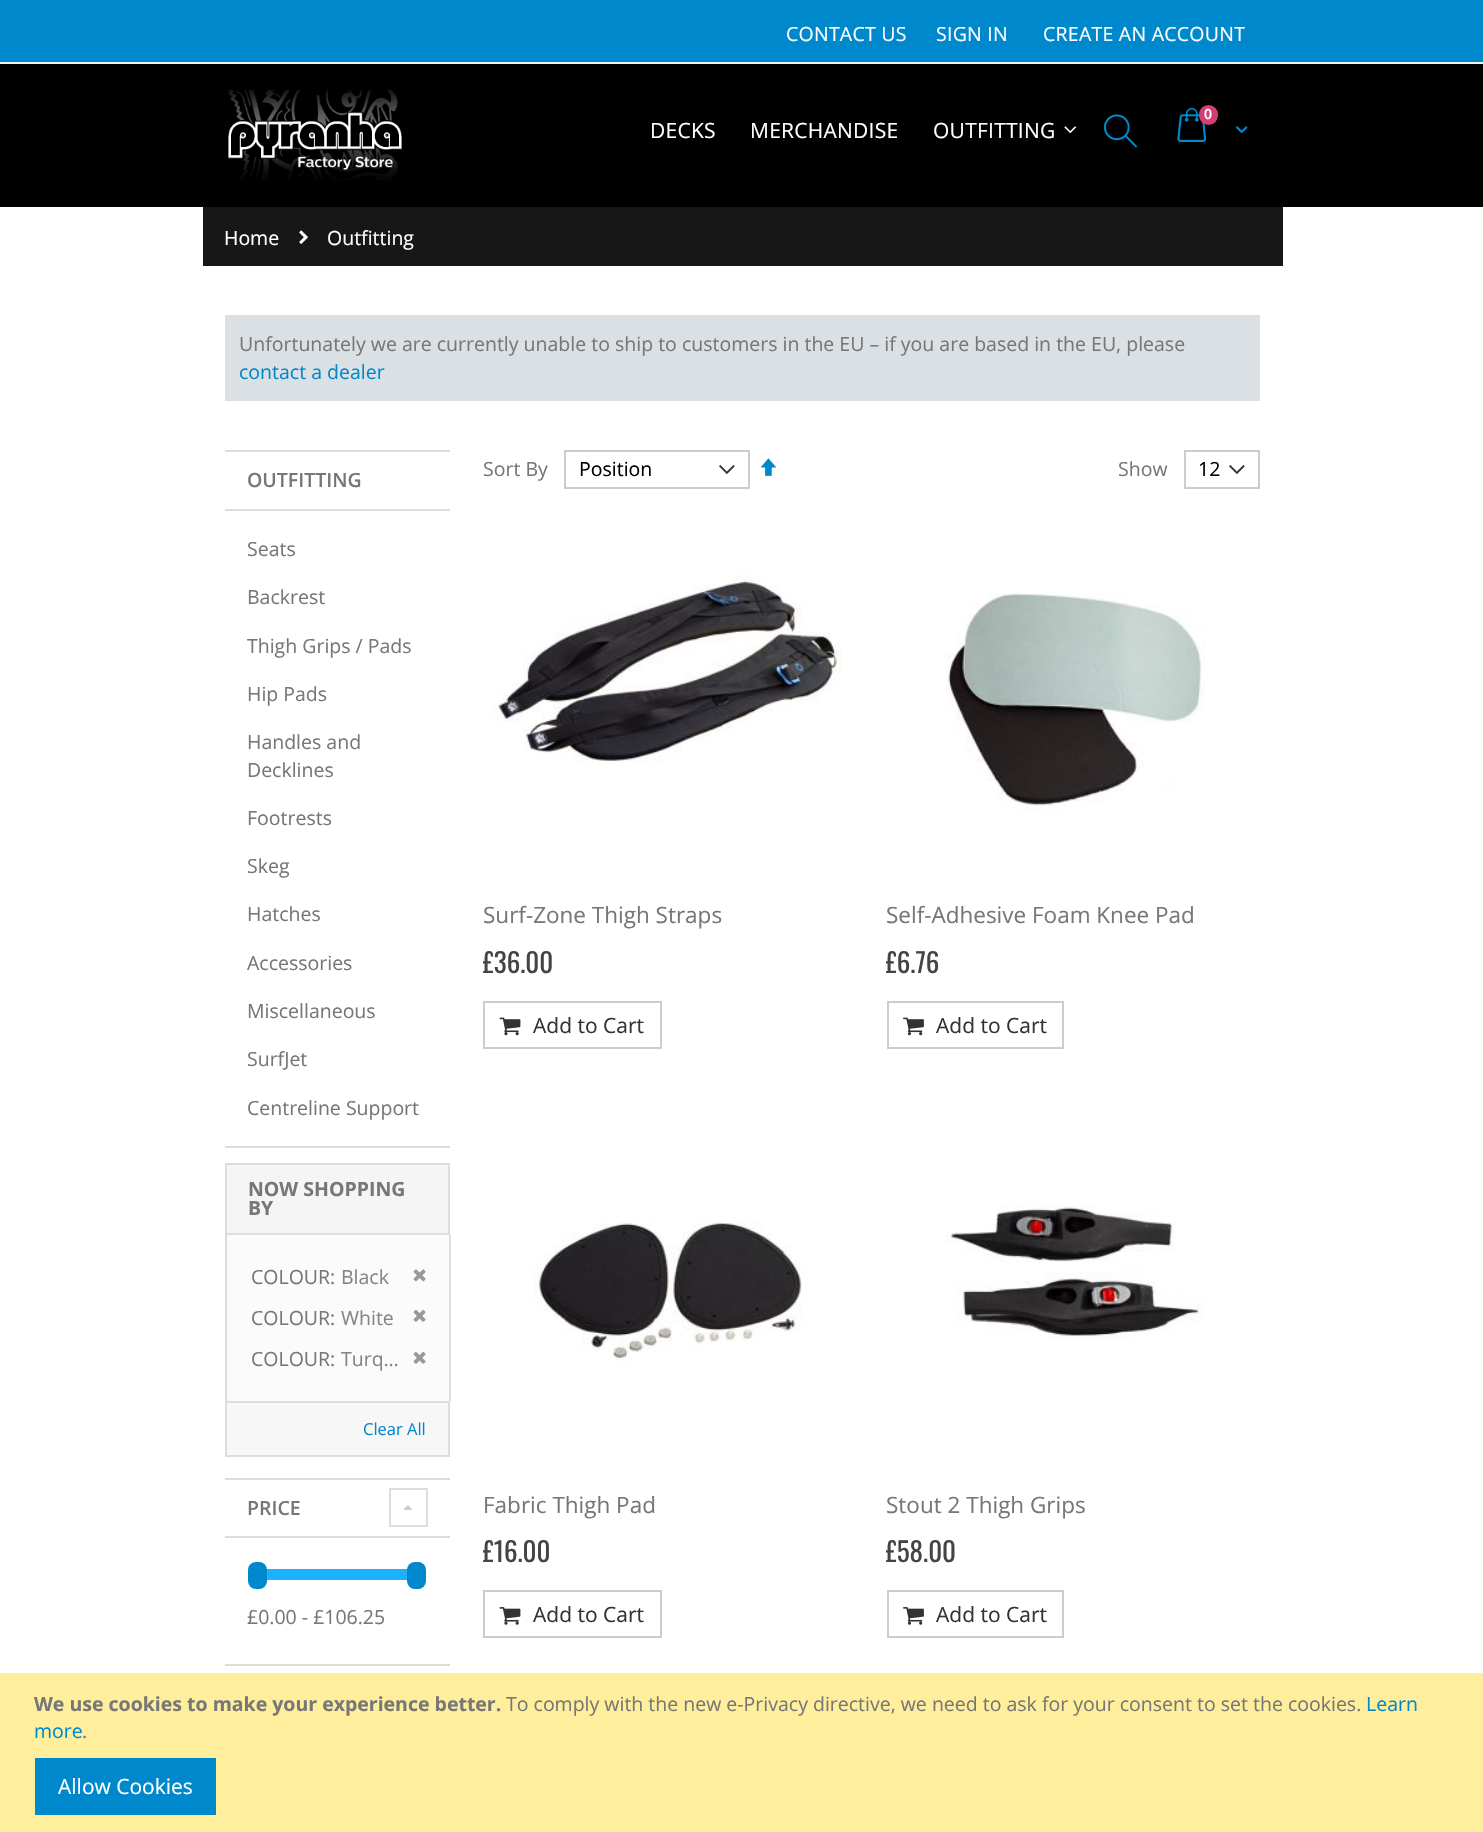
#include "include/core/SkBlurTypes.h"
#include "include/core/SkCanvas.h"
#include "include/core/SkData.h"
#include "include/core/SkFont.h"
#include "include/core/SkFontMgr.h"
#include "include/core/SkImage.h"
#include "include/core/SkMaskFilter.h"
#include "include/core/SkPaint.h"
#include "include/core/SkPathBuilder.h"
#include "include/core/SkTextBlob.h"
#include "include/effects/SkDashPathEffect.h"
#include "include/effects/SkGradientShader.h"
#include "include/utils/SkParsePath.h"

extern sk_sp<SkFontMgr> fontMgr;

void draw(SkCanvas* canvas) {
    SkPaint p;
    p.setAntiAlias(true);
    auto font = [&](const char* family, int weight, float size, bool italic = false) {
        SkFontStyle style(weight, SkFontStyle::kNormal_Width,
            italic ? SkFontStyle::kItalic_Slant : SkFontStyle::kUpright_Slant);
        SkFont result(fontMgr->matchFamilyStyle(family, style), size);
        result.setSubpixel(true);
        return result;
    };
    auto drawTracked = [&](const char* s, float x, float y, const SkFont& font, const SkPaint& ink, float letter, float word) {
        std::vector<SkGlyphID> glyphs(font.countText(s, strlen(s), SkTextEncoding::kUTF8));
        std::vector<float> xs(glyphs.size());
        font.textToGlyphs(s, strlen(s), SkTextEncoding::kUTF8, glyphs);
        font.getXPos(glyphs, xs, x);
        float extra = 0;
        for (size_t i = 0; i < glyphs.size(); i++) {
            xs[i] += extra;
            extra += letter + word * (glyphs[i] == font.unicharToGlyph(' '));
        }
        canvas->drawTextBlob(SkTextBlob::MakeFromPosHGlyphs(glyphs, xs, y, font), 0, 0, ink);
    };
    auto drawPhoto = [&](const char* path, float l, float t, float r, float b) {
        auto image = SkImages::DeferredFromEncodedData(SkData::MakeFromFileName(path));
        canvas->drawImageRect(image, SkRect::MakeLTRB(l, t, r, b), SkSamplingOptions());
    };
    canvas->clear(0xFFFFFFFF);
    {
        const struct { float l, t, r, b; SkColor color; } items[] = {
            {0, 64, 1483, 207, 0xFF000000},
            {0, 0, 1483, 62, 0xFF0088CC},
            {0, 62, 1483, 64, 0xFFF2F2F3},
        };
        for (auto [l, t, r, b, color] : items) {
            p.setColor(color);
            canvas->drawRect(SkRect::MakeLTRB(l, t, r, b), p);
        }
    }
    auto font1 = font("Open Sans", 400, 19.5f);
    p.setColor(0xFFFFFFFF);
    {
        const struct { const char* s; float x, y; } items[] = {
            {"CONTACT US", 786, 41},
            {"SIGN IN", 936, 41},
            {"CREATE AN ACCOUNT", 1043, 41},
        };
        for (auto [s, x, y] : items) {
            drawTracked(s, x, y, font1, p, 0.25f, 0);
        }
    }
    drawPhoto("media/1.png", 227, 90, 402, 180);
    auto font2 = font("Open Sans", 400, 21);
    {
        const struct { const char* s; float x, y; } items[] = {
            {"DECKS", 650, 138},
            {"MERCHANDISE", 750, 138},
            {"OUTFITTING", 933, 138},
        };
        for (auto [s, x, y] : items) {
            drawTracked(s, x, y, font2, p, 0.25f, 0);
        }
    }
    drawPhoto("media/2.png", 1064, 126, 1076, 134);
    drawPhoto("media/3.png", 1103, 114, 1137, 148);
    drawPhoto("media/4.png", 1177, 107, 1207, 142);
    p.setColor(0xFFD33E75);
    canvas->drawRoundRect(SkRect::MakeLTRB(1199, 105, 1218, 125), 9.5f, 9.5f, p);
    auto font3 = font("Open Sans", 600, 14);
    p.setColor(0xFFFFFFFF);
    canvas->drawString("0", 1204, 119, font3, p);
    drawPhoto("media/5.png", 1236, 126, 1248, 133);
    p.setColor(0xFF171717);
    canvas->drawRect(SkRect::MakeLTRB(203, 207, 1283, 266), p);
    p.setColor(0xFFFFFFFF);
    canvas->drawString("Home", 224, 245, font1, p);
    drawPhoto("media/6.png", 299, 230, 308, 244);
    canvas->drawString("Outfitting", 327, 245, font1, p);
    p.setColor(0xFFDAE0E3);
    canvas->drawRect(SkRect::MakeLTRB(225, 315, 1260, 401), p);
    p.setColor(0xFF777777);
    canvas->drawString("Unfortunately we are currently unable to ship to customers in the EU – if you are based in the EU, please", 239, 351, font1, p);
    p.setColor(0xFF0088CC);
    canvas->drawString("contact a dealer", 239, 379, font1, p);
    p.setColor(0xFFDDDDDD);
    canvas->drawRect(SkRect::MakeLTRB(225, 450, 450, 452), p);
    canvas->drawRect(SkRect::MakeLTRB(225, 509, 450, 511), p);
    auto font4 = font("Open Sans", 600, 19.5f);
    p.setColor(0xFF777777);
    canvas->drawString("OUTFITTING", 247, 487, font4, p);
    p.setColor(0xFFDDDDDD);
    canvas->drawRect(SkRect::MakeLTRB(225, 1146, 450, 1148), p);
    p.setColor(0xFF777777);
    {
        const struct { const char* s; float x, y; } items[] = {
            {"Seats", 247, 556},
            {"Backrest", 247, 604},
            {"Thigh Grips / Pads", 247, 653},
            {"Hip Pads", 247, 701},
            {"Handles and", 247, 749},
            {"Decklines", 247, 777},
            {"Footrests", 247, 825},
            {"Skeg", 247, 873},
            {"Hatches", 247, 921},
            {"Accessories", 247, 970},
            {"Miscellaneous", 247, 1018},
            {"SurfJet", 247, 1066},
            {"Centreline Support", 247, 1115},
        };
        for (auto [s, x, y] : items) {
            canvas->drawString(s, x, y, font1, p);
        }
    }
    p.setColor(0xFFF5F5F5);
    canvas->drawRect(SkRect::MakeLTRB(226, 1164, 449, 1234), p);
    p.setStyle(SkPaint::kStroke_Style);
    p.setStrokeWidth(2);
    p.setColor(0xFFDDDDDD);
    canvas->drawRect(SkRect::MakeLTRB(226, 1164, 449, 1234), p);
    auto font5 = font("Open Sans", 700, 19.5f);
    p.setStyle(SkPaint::kFill_Style);
    p.setColor(0xFF777777);
    canvas->drawString("NOW SHOPPING", 248, 1196, font5, p);
    canvas->drawString("BY", 248, 1215, font5, p);
    {
        const struct { float l, t, r, b; SkColor color; } items[] = {
            {227, 1235, 449, 1401, 0xFFFBFBFB},
            {449, 1235, 451, 1401, 0xFFDDDDDD},
            {225, 1235, 227, 1401, 0xFFDDDDDD},
        };
        for (auto [l, t, r, b, color] : items) {
            p.setColor(color);
            canvas->drawRect(SkRect::MakeLTRB(l, t, r, b), p);
        }
    }
    p.setColor(0xFF777777);
    canvas->drawString("COLOUR:", 251, 1284, font1, p);
    p.setColor(0xFF858585);
    canvas->drawString("Black", 341, 1284, font1, p);
    drawPhoto("media/7.png", 413, 1269, 426, 1282);
    p.setColor(0xFF777777);
    canvas->drawString("COLOUR:", 251, 1325, font1, p);
    p.setColor(0xFF858585);
    canvas->drawString("White", 341, 1325, font1, p);
    drawPhoto("media/8.png", 413, 1309, 426, 1322);
    p.setColor(0xFF777777);
    canvas->drawString("COLOUR:", 251, 1366, font1, p);
    p.setColor(0xFF858585);
    canvas->drawString("Turq…", 341, 1366, font1, p);
    drawPhoto("media/8.png", 413, 1351, 426, 1364);
    p.setColor(0xFFF7F7F7);
    canvas->drawRect(SkRect::MakeLTRB(226, 1402, 449, 1456), p);
    p.setStyle(SkPaint::kStroke_Style);
    p.setColor(0xFFDDDDDD);
    canvas->drawRect(SkRect::MakeLTRB(226, 1402, 449, 1456), p);
    auto font6 = font("Open Sans", 400, 16.5f);
    p.setStyle(SkPaint::kFill_Style);
    p.setColor(0xFF0088CC);
    canvas->drawString("Clear All", 363, 1435, font6, p);
    p.setColor(0xFFDDDDDD);
    canvas->drawRect(SkRect::MakeLTRB(225, 1478, 450, 1480), p);
    canvas->drawRect(SkRect::MakeLTRB(225, 1536, 450, 1538), p);
    p.setColor(0xFF777777);
    canvas->drawString("PRICE", 247, 1515, font4, p);
    p.setStyle(SkPaint::kStroke_Style);
    p.setColor(0xFFDDDDDD);
    canvas->drawRect(SkRect::MakeLTRB(390, 1489, 427, 1526), p);
    drawPhoto("media/9.png", 403, 1505, 412, 1510);
    p.setStyle(SkPaint::kFill_Style);
    canvas->drawRect(SkRect::MakeLTRB(225, 1664, 450, 1666), p);
    p.setColor(0xFF1AB2FF);
    canvas->drawRect(SkRect::MakeLTRB(266, 1569, 408, 1580), p);
    p.setColor(0xFF0088CC);
    canvas->drawRoundRect(SkRect::MakeLTRB(248, 1562, 267, 1589), 8, 8, p);
    canvas->drawRoundRect(SkRect::MakeLTRB(407, 1562, 426, 1589), 8, 8, p);
    p.setColor(0xFF777777);
    canvas->drawString("£0.00 - £106.25", 247, 1624, font1, p);
    canvas->drawString("Sort By", 483, 476, font1, p);
    drawPhoto("media/10.png", 719, 464, 735, 475);
    p.setStyle(SkPaint::kStroke_Style);
    p.setColor(0xFFCCCCCC);
    canvas->drawRect(SkRect::MakeLTRB(565, 451, 749, 488), p);
    p.setStyle(SkPaint::kFill_Style);
    p.setColor(0xFF000000);
    canvas->drawString("Position", 579, 476, font1, p);
    drawPhoto("media/11.png", 761, 458, 777, 476);
    p.setColor(0xFF777777);
    canvas->drawString("Show", 1118, 476, font1, p);
    drawPhoto("media/10.png", 1229, 464, 1245, 475);
    p.setStyle(SkPaint::kStroke_Style);
    p.setColor(0xFFCCCCCC);
    canvas->drawRect(SkRect::MakeLTRB(1185, 451, 1259, 488), p);
    p.setStyle(SkPaint::kFill_Style);
    p.setColor(0xFF000000);
    canvas->drawString("12", 1198, 476, font1, p);
    drawPhoto("media/12.png", 493, 574, 842, 762);
    auto font7 = font("Open Sans", 400, 22.5f);
    p.setColor(0xFF777777);
    canvas->drawString("Surf-Zone Thigh Straps", 483, 923, font7, p);
    auto font8 = font("Oswald", 400, 27);
    p.setColor(0xFF444444);
    canvas->drawString("£36.00", 483, 973, font8, p);
    p.setStyle(SkPaint::kStroke_Style);
    p.setColor(0xFFCCCCCC);
    canvas->drawRect(SkRect::MakeLTRB(484, 1002, 661, 1048), p);
    drawPhoto("media/13.png", 499, 1017, 521, 1036);
    p.setStyle(SkPaint::kFill_Style);
    p.setColor(0xFF333333);
    canvas->drawString("Add to Cart", 533, 1033, font2, p);
    drawPhoto("media/14.png", 946, 593, 1205, 810);
    p.setColor(0xFF777777);
    canvas->drawString("Self-Adhesive Foam Knee Pad", 886, 923, font7, p);
    p.setColor(0xFF444444);
    canvas->drawString("£6.76", 886, 973, font8, p);
    p.setStyle(SkPaint::kStroke_Style);
    p.setColor(0xFFCCCCCC);
    canvas->drawRect(SkRect::MakeLTRB(888, 1002, 1063, 1048), p);
    drawPhoto("media/15.png", 903, 1017, 924, 1036);
    p.setStyle(SkPaint::kFill_Style);
    p.setColor(0xFF333333);
    canvas->drawString("Add to Cart", 936, 1033, font2, p);
    drawPhoto("media/16.png", 533, 1222, 802, 1361);
    p.setColor(0xFF777777);
    canvas->drawString("Fabric Thigh Pad", 483, 1513, font7, p);
    p.setColor(0xFF444444);
    canvas->drawString("£16.00", 483, 1562, font8, p);
    p.setStyle(SkPaint::kStroke_Style);
    p.setColor(0xFFCCCCCC);
    canvas->drawRect(SkRect::MakeLTRB(484, 1591, 661, 1637), p);
    drawPhoto("media/17.png", 499, 1607, 521, 1625);
    p.setStyle(SkPaint::kFill_Style);
    p.setColor(0xFF333333);
    canvas->drawString("Add to Cart", 533, 1622, font2, p);
    drawPhoto("media/18.png", 946, 1203, 1204, 1340);
    p.setColor(0xFF777777);
    canvas->drawString("Stout 2 Thigh Grips", 886, 1513, font7, p);
    p.setColor(0xFF444444);
    canvas->drawString("£58.00", 886, 1562, font8, p);
    p.setStyle(SkPaint::kStroke_Style);
    p.setColor(0xFFCCCCCC);
    canvas->drawRect(SkRect::MakeLTRB(888, 1591, 1063, 1637), p);
    drawPhoto("media/19.png", 903, 1607, 924, 1625);
    p.setStyle(SkPaint::kFill_Style);
    p.setColor(0xFF333333);
    canvas->drawString("Add to Cart", 936, 1622, font2, p);
    p.setColor(0xFFFFEE9C);
    canvas->drawRect(SkRect::MakeLTRB(0, 1673, 1483, 1832), p);
    p.setColor(0xFF777777);
    canvas->drawString("We use cookies to make your experience better.", 34, 1711, font5, p);
    canvas->drawString("To comply with the new e-Privacy directive, we need to ask for your consent to set the cookies.", 506, 1711, font1, p);
    p.setColor(0xFF0088CC);
    canvas->drawString("Learn", 1366, 1711, font1, p);
    canvas->drawString("more", 34, 1738, font1, p);
    p.setColor(0xFF777777);
    canvas->drawString(".", 82, 1738, font1, p);
    p.setColor(0xFF0088CC);
    canvas->drawRect(SkRect::MakeLTRB(35, 1758, 216, 1815), p);
    p.setColor(0xFFFFFFFF);
    canvas->drawString("Allow Cookies", 58, 1794, font2, p);
}
